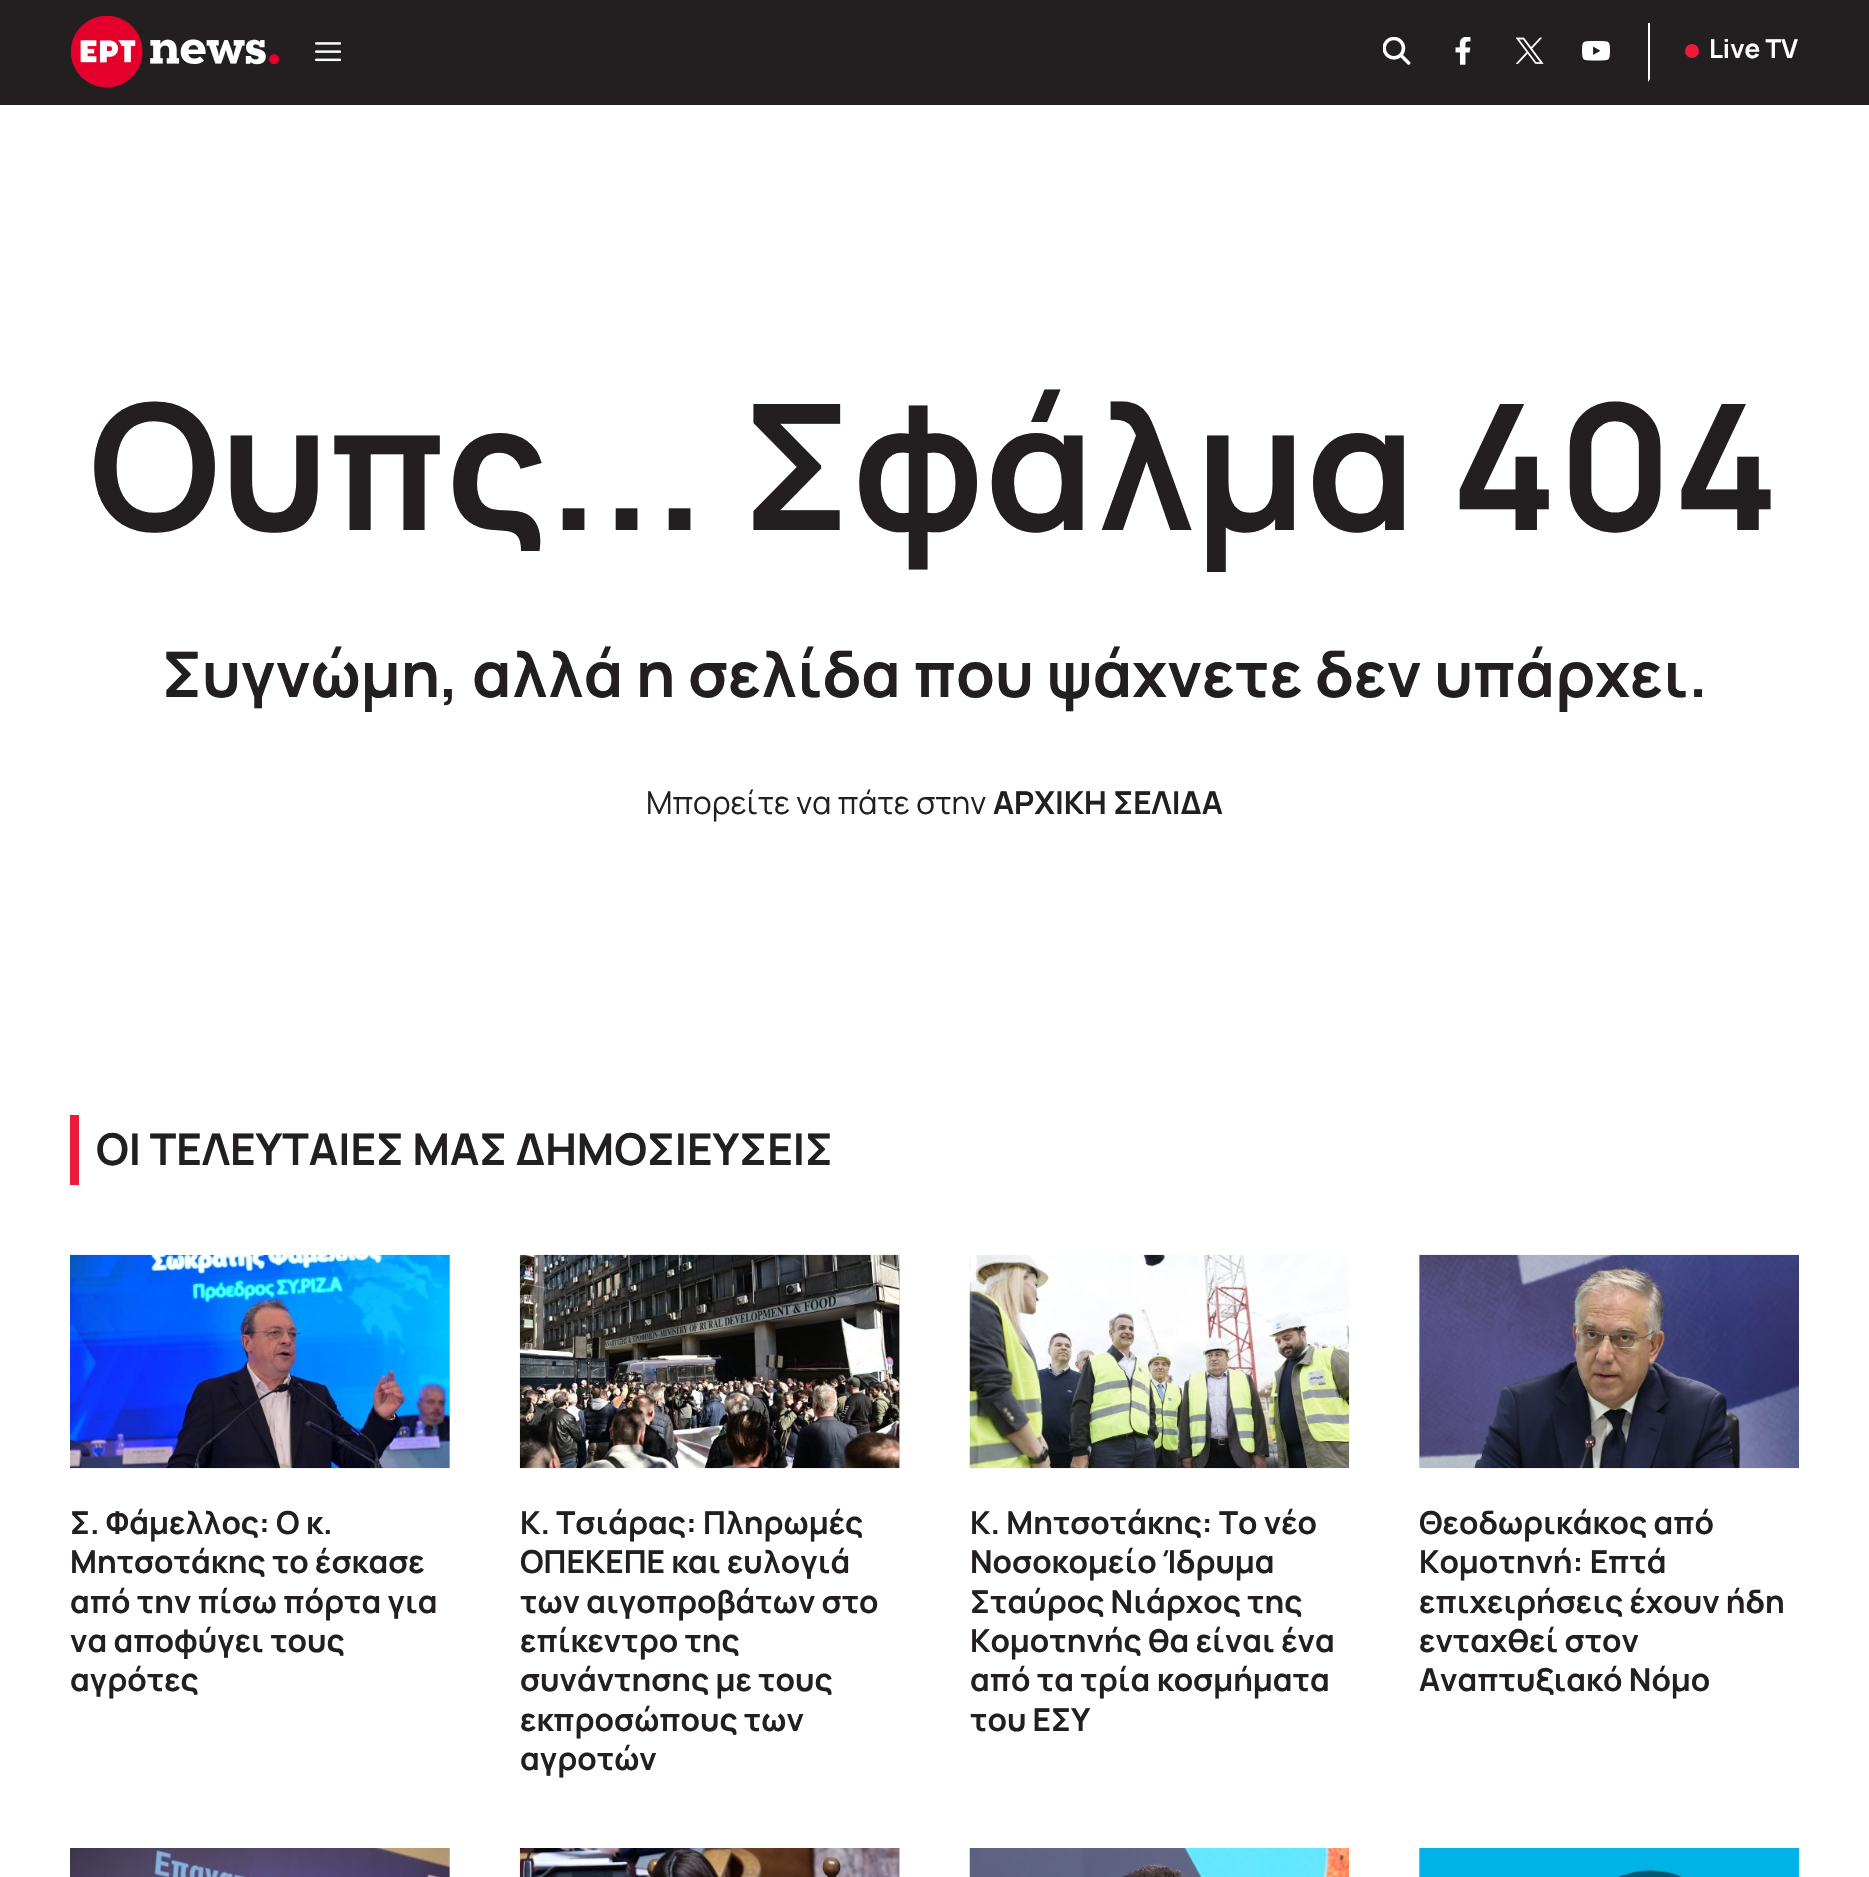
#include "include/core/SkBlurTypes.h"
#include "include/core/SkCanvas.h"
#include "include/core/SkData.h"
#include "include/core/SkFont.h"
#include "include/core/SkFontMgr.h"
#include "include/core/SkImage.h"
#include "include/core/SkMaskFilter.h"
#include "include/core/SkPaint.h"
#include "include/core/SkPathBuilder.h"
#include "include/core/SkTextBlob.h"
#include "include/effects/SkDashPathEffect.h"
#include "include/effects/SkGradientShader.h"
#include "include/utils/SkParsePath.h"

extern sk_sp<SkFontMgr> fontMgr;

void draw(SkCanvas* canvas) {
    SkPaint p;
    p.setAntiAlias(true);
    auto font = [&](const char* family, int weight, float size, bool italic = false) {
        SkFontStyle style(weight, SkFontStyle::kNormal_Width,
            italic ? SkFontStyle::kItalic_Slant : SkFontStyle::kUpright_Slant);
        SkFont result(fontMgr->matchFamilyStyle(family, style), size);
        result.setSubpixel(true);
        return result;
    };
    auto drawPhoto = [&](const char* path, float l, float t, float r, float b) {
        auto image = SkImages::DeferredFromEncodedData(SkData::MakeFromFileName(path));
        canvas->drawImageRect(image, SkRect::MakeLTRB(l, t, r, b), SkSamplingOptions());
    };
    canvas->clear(0xFFFFFFFF);
    p.setColor(0xFF231F20);
    canvas->drawRect(SkRect::MakeLTRB(0, 0, 1869, 105), p);
    drawPhoto("media/1.png", 71, 16, 279, 88);
    drawPhoto("media/2.png", 315, 42, 341, 62);
    drawPhoto("media/3.png", 1383, 37, 1411, 65);
    drawPhoto("media/4.png", 1455, 37, 1471, 65);
    drawPhoto("media/5.png", 1516, 37, 1544, 64);
    drawPhoto("media/6.png", 1582, 40, 1610, 61);
    p.setColor(0xFFFFFFFF);
    canvas->drawPath(SkPathBuilder().moveTo(1648, 82).lineTo(1648, 23).lineTo(1650, 23).lineTo(1650, 79).close().detach(), p);
    p.setColor(0xFFED1A3B);
    canvas->drawCircle(1692, 51, 7, p);
    auto font1 = font("Manrope", 700, 26);
    p.setColor(0xFFFFFFFF);
    canvas->drawString("Live TV", 1709, 58, font1, p);
    auto font2 = font("Manrope", 700, 175);
    p.setColor(0xFF231F20);
    canvas->drawString("Ουπς... Σφάλμα 404", 89, 530, font2, p);
    auto font3 = font("Manrope", 700, 63);
    canvas->drawString("Συγνώμη, αλλά η σελίδα που ψάχνετε δεν υπάρχει.", 162, 697, font3, p);
    auto font4 = font("Manrope", 400, 31.5f);
    canvas->drawString("Μπορείτε να πάτε στην", 646, 814, font4, p);
    auto font5 = font("Manrope", 700, 31.5f);
    canvas->drawString("ΑΡΧΙΚΗ ΣΕΛΙΔΑ", 993, 814, font5, p);
    p.setColor(0xFFED1A3B);
    canvas->drawRect(SkRect::MakeLTRB(70, 1115, 79, 1185), p);
    auto font6 = font("Manrope", 700, 43.75f);
    p.setColor(0xFF231F20);
    canvas->drawString("ΟΙ ΤΕΛΕΥΤΑΙΕΣ ΜΑΣ ΔΗΜΟΣΙΕΥΣΕΙΣ", 96, 1165, font6, p);
    p.setColor(0xFFD9D9D9);
    canvas->drawRect(SkRect::MakeLTRB(449, 1255, 450, 1468), p);
    drawPhoto("media/7.png", 70, 1254, 450, 1469);
    p.setColor(0xFF231F20);
    {
        const struct { const char* s; float x, y; } items[] = {
            {"Σ. Φάμελλος: Ο κ.", 70, 1534},
            {"Μητσοτάκης το έσκασε", 70, 1573},
            {"από την πίσω πόρτα για", 70, 1613},
            {"να αποφύγει τους", 70, 1652},
            {"αγρότες", 70, 1691},
        };
        for (auto [s, x, y] : items) {
            canvas->drawString(s, x, y, font5, p);
        }
    }
    p.setColor(0xFFD9D9D9);
    canvas->drawRect(SkRect::MakeLTRB(899, 1255, 900, 1468), p);
    drawPhoto("media/8.png", 519, 1254, 900, 1469);
    p.setColor(0xFF231F20);
    {
        const struct { const char* s; float x, y; } items[] = {
            {"Κ. Τσιάρας: Πληρωμές", 520, 1534},
            {"ΟΠΕΚΕΠΕ και ευλογιά", 520, 1573},
            {"των αιγοπροβάτων στο", 520, 1613},
            {"επίκεντρο της", 520, 1652},
            {"συνάντησης με τους", 520, 1691},
            {"εκπροσώπους των", 520, 1731},
            {"αγροτών", 520, 1770},
        };
        for (auto [s, x, y] : items) {
            canvas->drawString(s, x, y, font5, p);
        }
    }
    drawPhoto("media/9.png", 969, 1254, 1350, 1469);
    {
        const struct { const char* s; float x, y; } items[] = {
            {"Κ. Μητσοτάκης: Το νέο", 970, 1534},
            {"Νοσοκομείο Ίδρυμα", 970, 1573},
            {"Σταύρος Νιάρχος της", 970, 1613},
            {"Κομοτηνής θα είναι ένα", 970, 1652},
            {"από τα τρία κοσμήματα", 970, 1691},
            {"του ΕΣΥ", 970, 1731},
        };
        for (auto [s, x, y] : items) {
            canvas->drawString(s, x, y, font5, p);
        }
    }
    p.setColor(0xFFD9D9D9);
    canvas->drawRect(SkRect::MakeLTRB(1419, 1255, 1420, 1468), p);
    drawPhoto("media/10.png", 1419, 1254, 1799, 1469);
    p.setColor(0xFF231F20);
    {
        const struct { const char* s; float x, y; } items[] = {
            {"Θεοδωρικάκος από", 1419, 1534},
            {"Κομοτηνή: Επτά", 1419, 1573},
            {"επιχειρήσεις έχουν ήδη", 1419, 1613},
            {"ενταχθεί στον", 1419, 1652},
            {"Αναπτυξιακό Νόμο", 1419, 1691},
        };
        for (auto [s, x, y] : items) {
            canvas->drawString(s, x, y, font5, p);
        }
    }
    p.setColor(0xFFD9D9D9);
    canvas->drawRect(SkRect::MakeLTRB(449, 1848, 450, 1877), p);
    drawPhoto("media/11.png", 70, 1848, 450, 1877);
    canvas->drawRect(SkRect::MakeLTRB(899, 1848, 900, 1877), p);
    drawPhoto("media/12.png", 519, 1848, 900, 1877);
    drawPhoto("media/13.png", 969, 1848, 1350, 1877);
    canvas->drawRect(SkRect::MakeLTRB(1419, 1848, 1420, 1877), p);
    drawPhoto("media/14.png", 1419, 1848, 1799, 1877);
}
